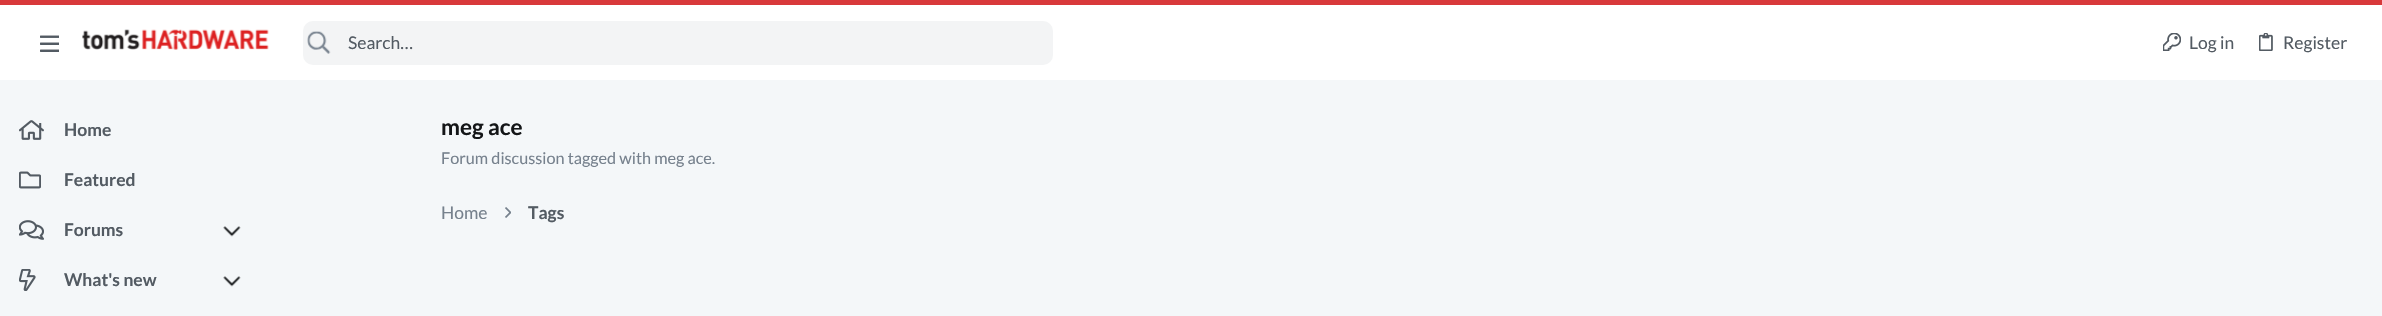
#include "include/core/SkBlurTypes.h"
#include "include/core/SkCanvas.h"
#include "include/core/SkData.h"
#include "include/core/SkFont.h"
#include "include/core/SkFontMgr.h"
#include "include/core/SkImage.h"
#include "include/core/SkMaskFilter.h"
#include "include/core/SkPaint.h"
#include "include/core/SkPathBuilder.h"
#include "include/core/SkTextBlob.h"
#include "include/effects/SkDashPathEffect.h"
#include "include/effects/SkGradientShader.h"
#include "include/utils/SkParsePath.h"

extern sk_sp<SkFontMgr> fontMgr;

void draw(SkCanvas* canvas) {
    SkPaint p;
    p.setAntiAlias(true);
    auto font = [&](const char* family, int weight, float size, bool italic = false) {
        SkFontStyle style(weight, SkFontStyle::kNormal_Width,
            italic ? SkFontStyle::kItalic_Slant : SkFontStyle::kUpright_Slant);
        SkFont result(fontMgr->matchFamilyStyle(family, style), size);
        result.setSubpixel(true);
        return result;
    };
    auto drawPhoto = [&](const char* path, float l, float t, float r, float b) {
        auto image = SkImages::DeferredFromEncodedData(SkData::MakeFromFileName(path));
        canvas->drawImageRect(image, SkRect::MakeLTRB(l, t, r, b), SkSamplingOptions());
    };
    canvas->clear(0xFFF4F7F9);
    p.setColor(0xFFFFFFFF);
    canvas->drawRect(SkRect::MakeLTRB(0, 5, 2382, 80), p);
    p.setColor(0xFFD8393B);
    canvas->drawRect(SkRect::MakeLTRB(0, 0, 2382, 5), p);
    drawPhoto("media/1.png", 40, 35, 59, 52);
    drawPhoto("media/2.png", 82, 29, 269, 50);
    p.setColor(0xFFF3F4F5);
    canvas->drawRoundRect(SkRect::MakeLTRB(303, 21, 1053, 65), 10, 10, p);
    drawPhoto("media/3.png", 307, 31, 331, 54);
    auto font1 = font("Lato", 400, 17.5f);
    p.setColor(0xFF535B63);
    canvas->drawString("Search…", 348, 49, font1, p);
    drawPhoto("media/4.png", 2163, 33, 2181, 51);
    canvas->drawString("Log in", 2189, 49, font1, p);
    drawPhoto("media/5.png", 2259, 33, 2273, 51);
    canvas->drawString("Register", 2283, 49, font1, p);
    drawPhoto("media/6.png", 19, 120, 44, 140);
    auto font2 = font("Lato", 700, 17.5f);
    canvas->drawString("Home", 64, 136, font2, p);
    drawPhoto("media/7.png", 19, 171, 41, 189);
    canvas->drawString("Featured", 64, 186, font2, p);
    drawPhoto("media/8.png", 19, 220, 44, 240);
    canvas->drawString("Forums", 64, 236, font2, p);
    drawPhoto("media/9.png", 223, 226, 241, 237);
    drawPhoto("media/10.png", 19, 269, 36, 291);
    canvas->drawString("What's new", 64, 286, font2, p);
    drawPhoto("media/9.png", 223, 276, 241, 287);
    auto font3 = font("Lato", 700, 22.5f);
    p.setColor(0xFF141618);
    canvas->drawString("meg ace", 441, 135, font3, p);
    auto font4 = font("Lato", 400, 16.25f);
    p.setColor(0xFF76818D);
    canvas->drawString("Forum discussion tagged with meg ace.", 441, 164, font4, p);
    canvas->drawString("Home", 441, 219, font1, p);
    drawPhoto("media/11.png", 505, 207, 511, 218);
    p.setColor(0xFF535B63);
    canvas->drawString("Tags", 528, 219, font2, p);
}
